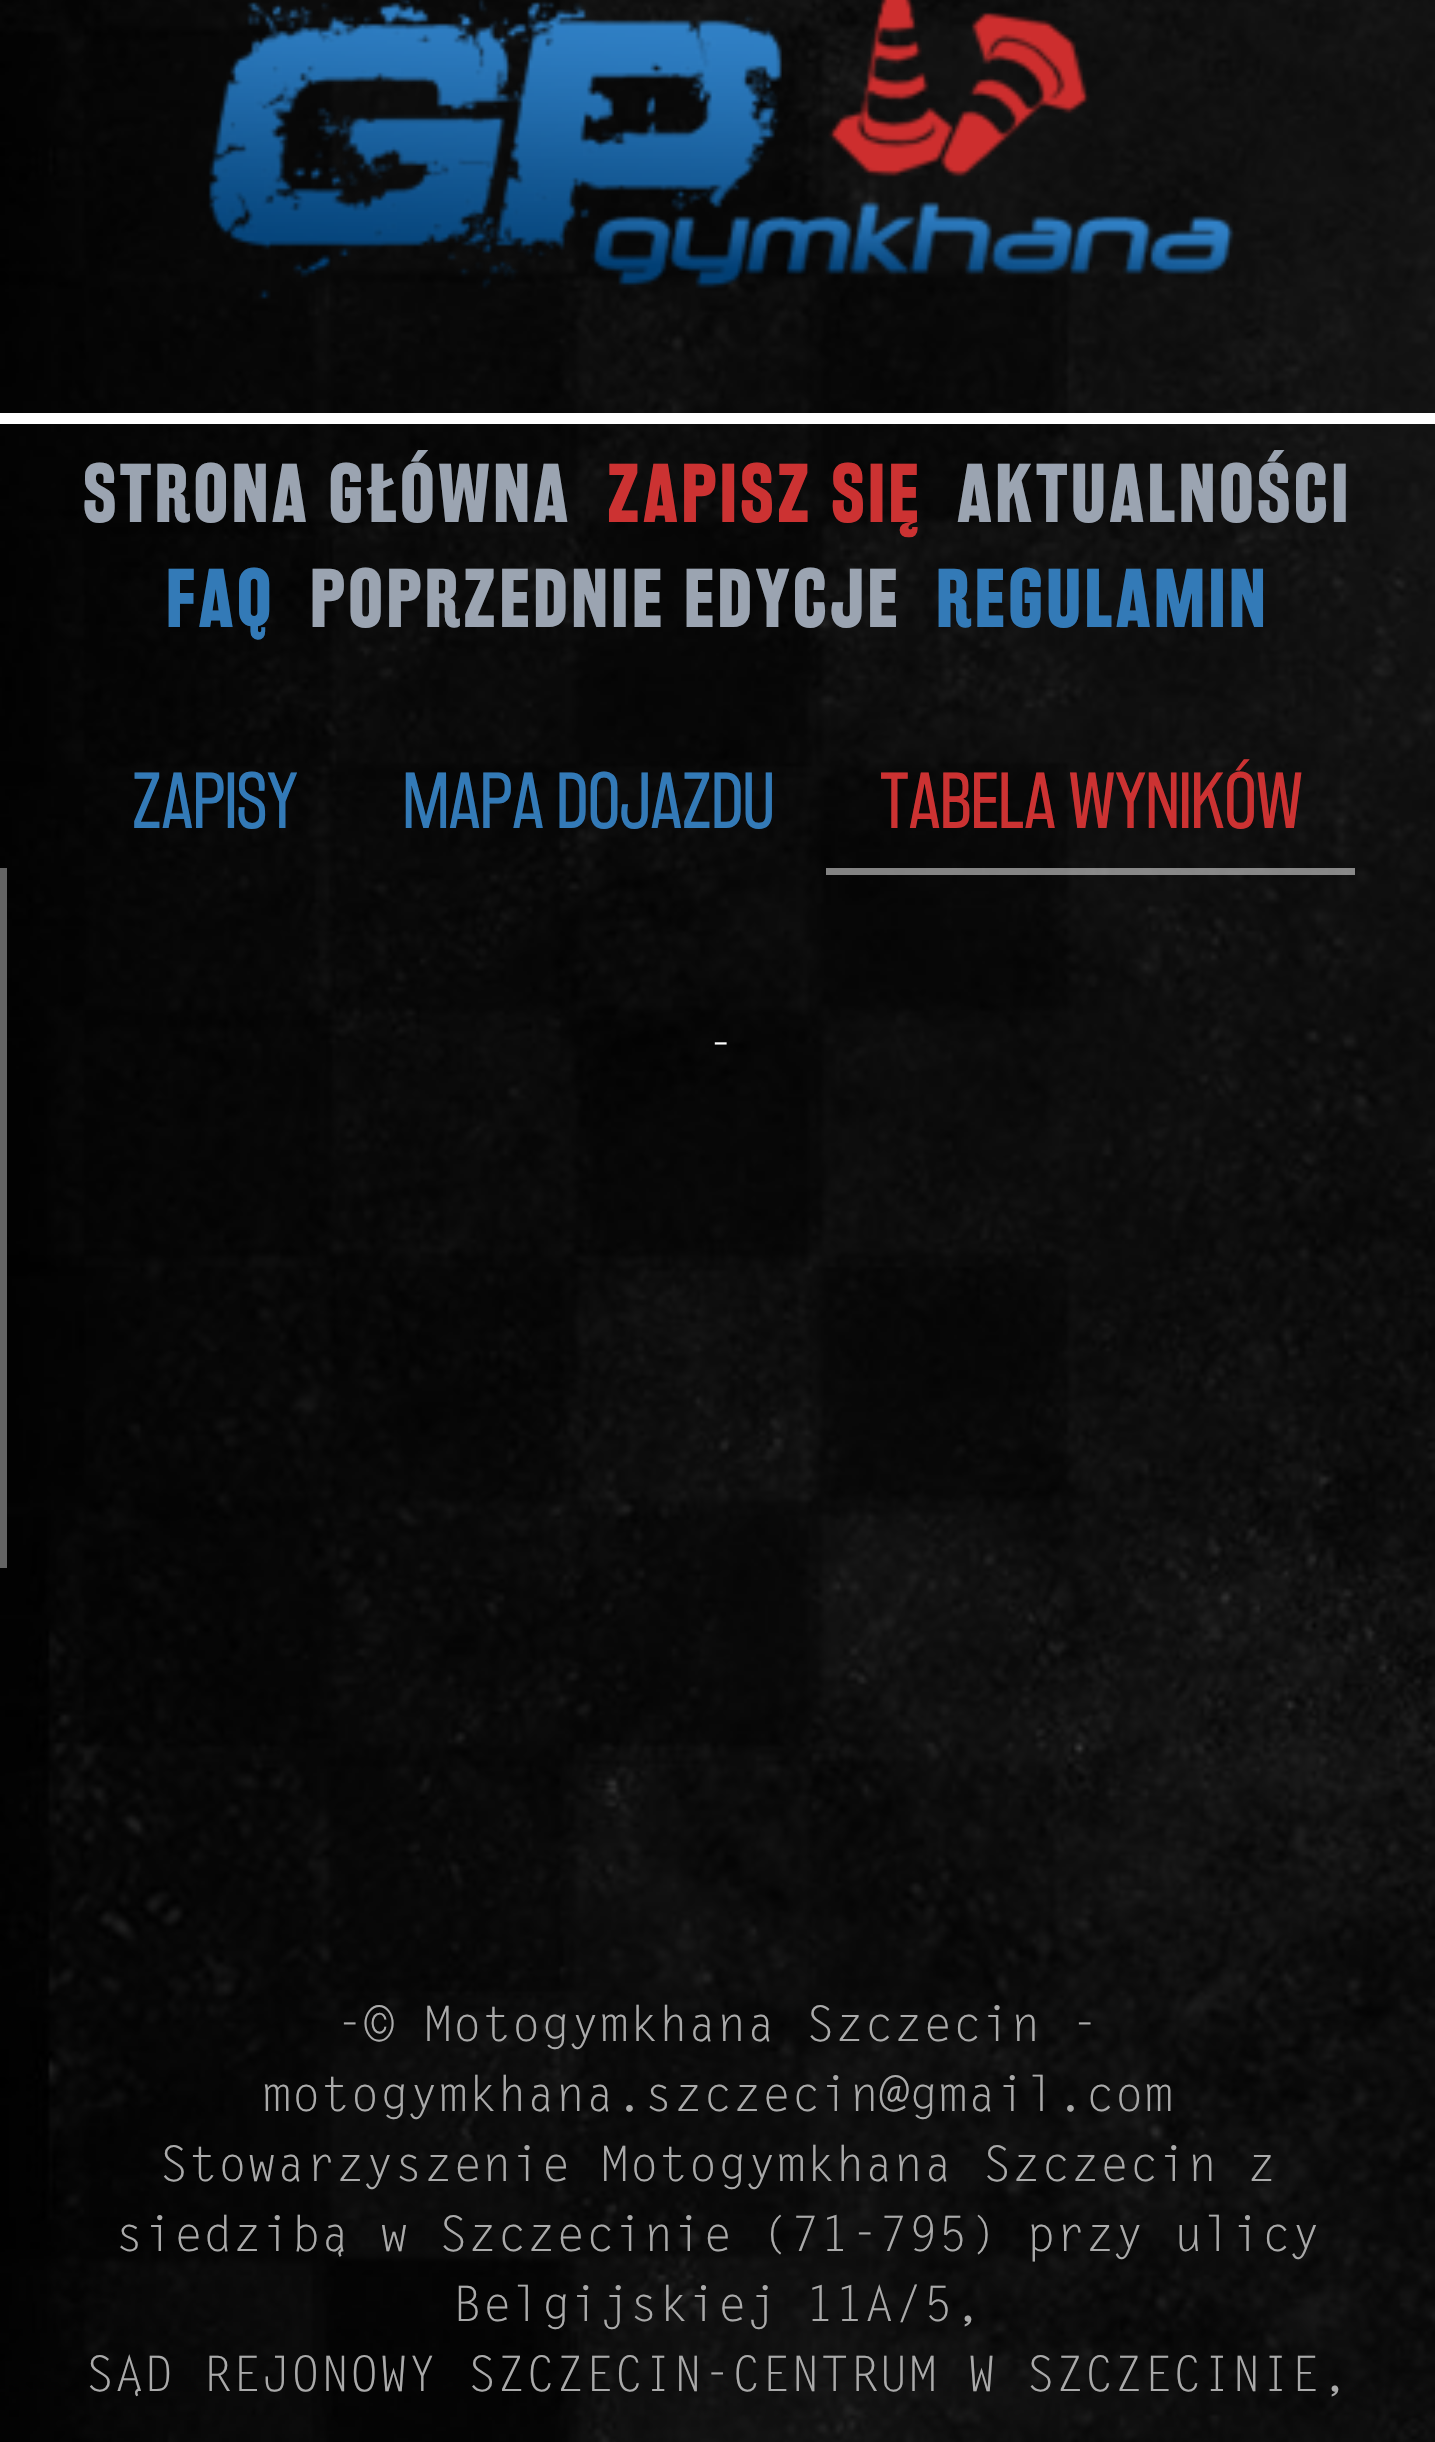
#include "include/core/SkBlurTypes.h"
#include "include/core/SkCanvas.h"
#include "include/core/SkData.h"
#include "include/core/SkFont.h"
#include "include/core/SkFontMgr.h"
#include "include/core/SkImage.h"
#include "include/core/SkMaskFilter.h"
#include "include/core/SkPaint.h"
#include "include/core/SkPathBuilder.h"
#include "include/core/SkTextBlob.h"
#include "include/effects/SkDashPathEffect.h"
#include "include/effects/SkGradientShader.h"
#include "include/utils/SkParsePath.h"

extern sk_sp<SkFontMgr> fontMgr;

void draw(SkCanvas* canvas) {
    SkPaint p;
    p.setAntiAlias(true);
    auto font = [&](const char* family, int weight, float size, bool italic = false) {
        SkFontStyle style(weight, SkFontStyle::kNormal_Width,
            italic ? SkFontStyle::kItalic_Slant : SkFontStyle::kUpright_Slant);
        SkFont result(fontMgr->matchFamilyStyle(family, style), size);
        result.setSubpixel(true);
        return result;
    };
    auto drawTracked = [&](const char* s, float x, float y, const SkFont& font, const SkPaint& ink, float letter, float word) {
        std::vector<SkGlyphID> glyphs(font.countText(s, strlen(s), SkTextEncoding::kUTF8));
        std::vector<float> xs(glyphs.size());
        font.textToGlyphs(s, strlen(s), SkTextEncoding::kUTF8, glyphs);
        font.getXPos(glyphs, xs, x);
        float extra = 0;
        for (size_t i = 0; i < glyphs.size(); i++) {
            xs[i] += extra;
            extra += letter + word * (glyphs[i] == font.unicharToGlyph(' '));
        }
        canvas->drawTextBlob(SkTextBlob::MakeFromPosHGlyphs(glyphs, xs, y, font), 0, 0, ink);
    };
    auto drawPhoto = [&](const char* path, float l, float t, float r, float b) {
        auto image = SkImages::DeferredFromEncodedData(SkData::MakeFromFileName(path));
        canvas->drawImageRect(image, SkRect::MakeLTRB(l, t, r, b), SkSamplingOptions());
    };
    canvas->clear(0xFFFFFFFF);
    drawPhoto("media/1.png", 0, 0, 1435, 2442);
    drawPhoto("media/2.png", 208, 0, 1234, 299);
    p.setColor(0xFFFFFFFF);
    canvas->drawRect(SkRect::MakeLTRB(0, 413, 1435, 424), p);
    auto font1 = font("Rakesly", 700, 73.5f);
    p.setColor(0xFF9BA4B1);
    drawTracked("STRONA GŁÓWNA", 83, 522, font1, p, 3.5f, 0);
    p.setColor(0xFFCC3232);
    drawTracked("ZAPISZ SIĘ", 607, 522, font1, p, 3.5f, 0);
    p.setColor(0xFF9BA4B1);
    drawTracked("AKTUALNOŚCI", 957, 522, font1, p, 3.5f, 0);
    p.setColor(0xFF337AB7);
    drawTracked("FAQ", 166, 627, font1, p, 3.5f, 0);
    p.setColor(0xFF9BA4B1);
    drawTracked("POPRZEDNIE EDYCJE", 310, 627, font1, p, 3.5f, 0);
    p.setColor(0xFF337AB7);
    drawTracked("REGULAMIN", 936, 627, font1, p, 3.5f, 0);
    auto font2 = font("Rakesly", 400, 70);
    canvas->drawString("ZAPISY", 132, 828, font2, p);
    canvas->drawString("MAPA DOJAZDU", 403, 828, font2, p);
    p.setColor(0x80FFFFFF);
    canvas->drawRect(SkRect::MakeLTRB(826, 868, 1355, 875), p);
    p.setColor(0xFFCC3232);
    canvas->drawString("TABELA WYNIKÓW", 880, 828, font2, p);
    p.setColor(0xFF646464);
    canvas->drawRect(SkRect::MakeLTRB(0, 868, 7, 1568), p);
    auto font3 = font("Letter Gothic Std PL", 400, 49);
    p.setColor(0xFFFFFFFF);
    canvas->drawString("-", 706, 1061, font3, p);
    p.setColor(0xFFAAAAAA);
    {
        const struct { const char* s; float x, y; } items[] = {
            {"-© Motogymkhana Szczecin -", 335, 2041},
            {"motogymkhana.szczecin@gmail.com", 262, 2111},
            {"Stowarzyszenie Motogymkhana Szczecin z", 159, 2181},
            {"siedzibą w Szczecinie (71-795) przy ulicy", 115, 2251},
            {"Belgijskiej 11A/5,", 453, 2321},
            {"SĄD REJONOWY SZCZECIN-CENTRUM W SZCZECINIE,", 85, 2391},
        };
        for (auto [s, x, y] : items) {
            canvas->drawString(s, x, y, font3, p);
        }
    }
}
